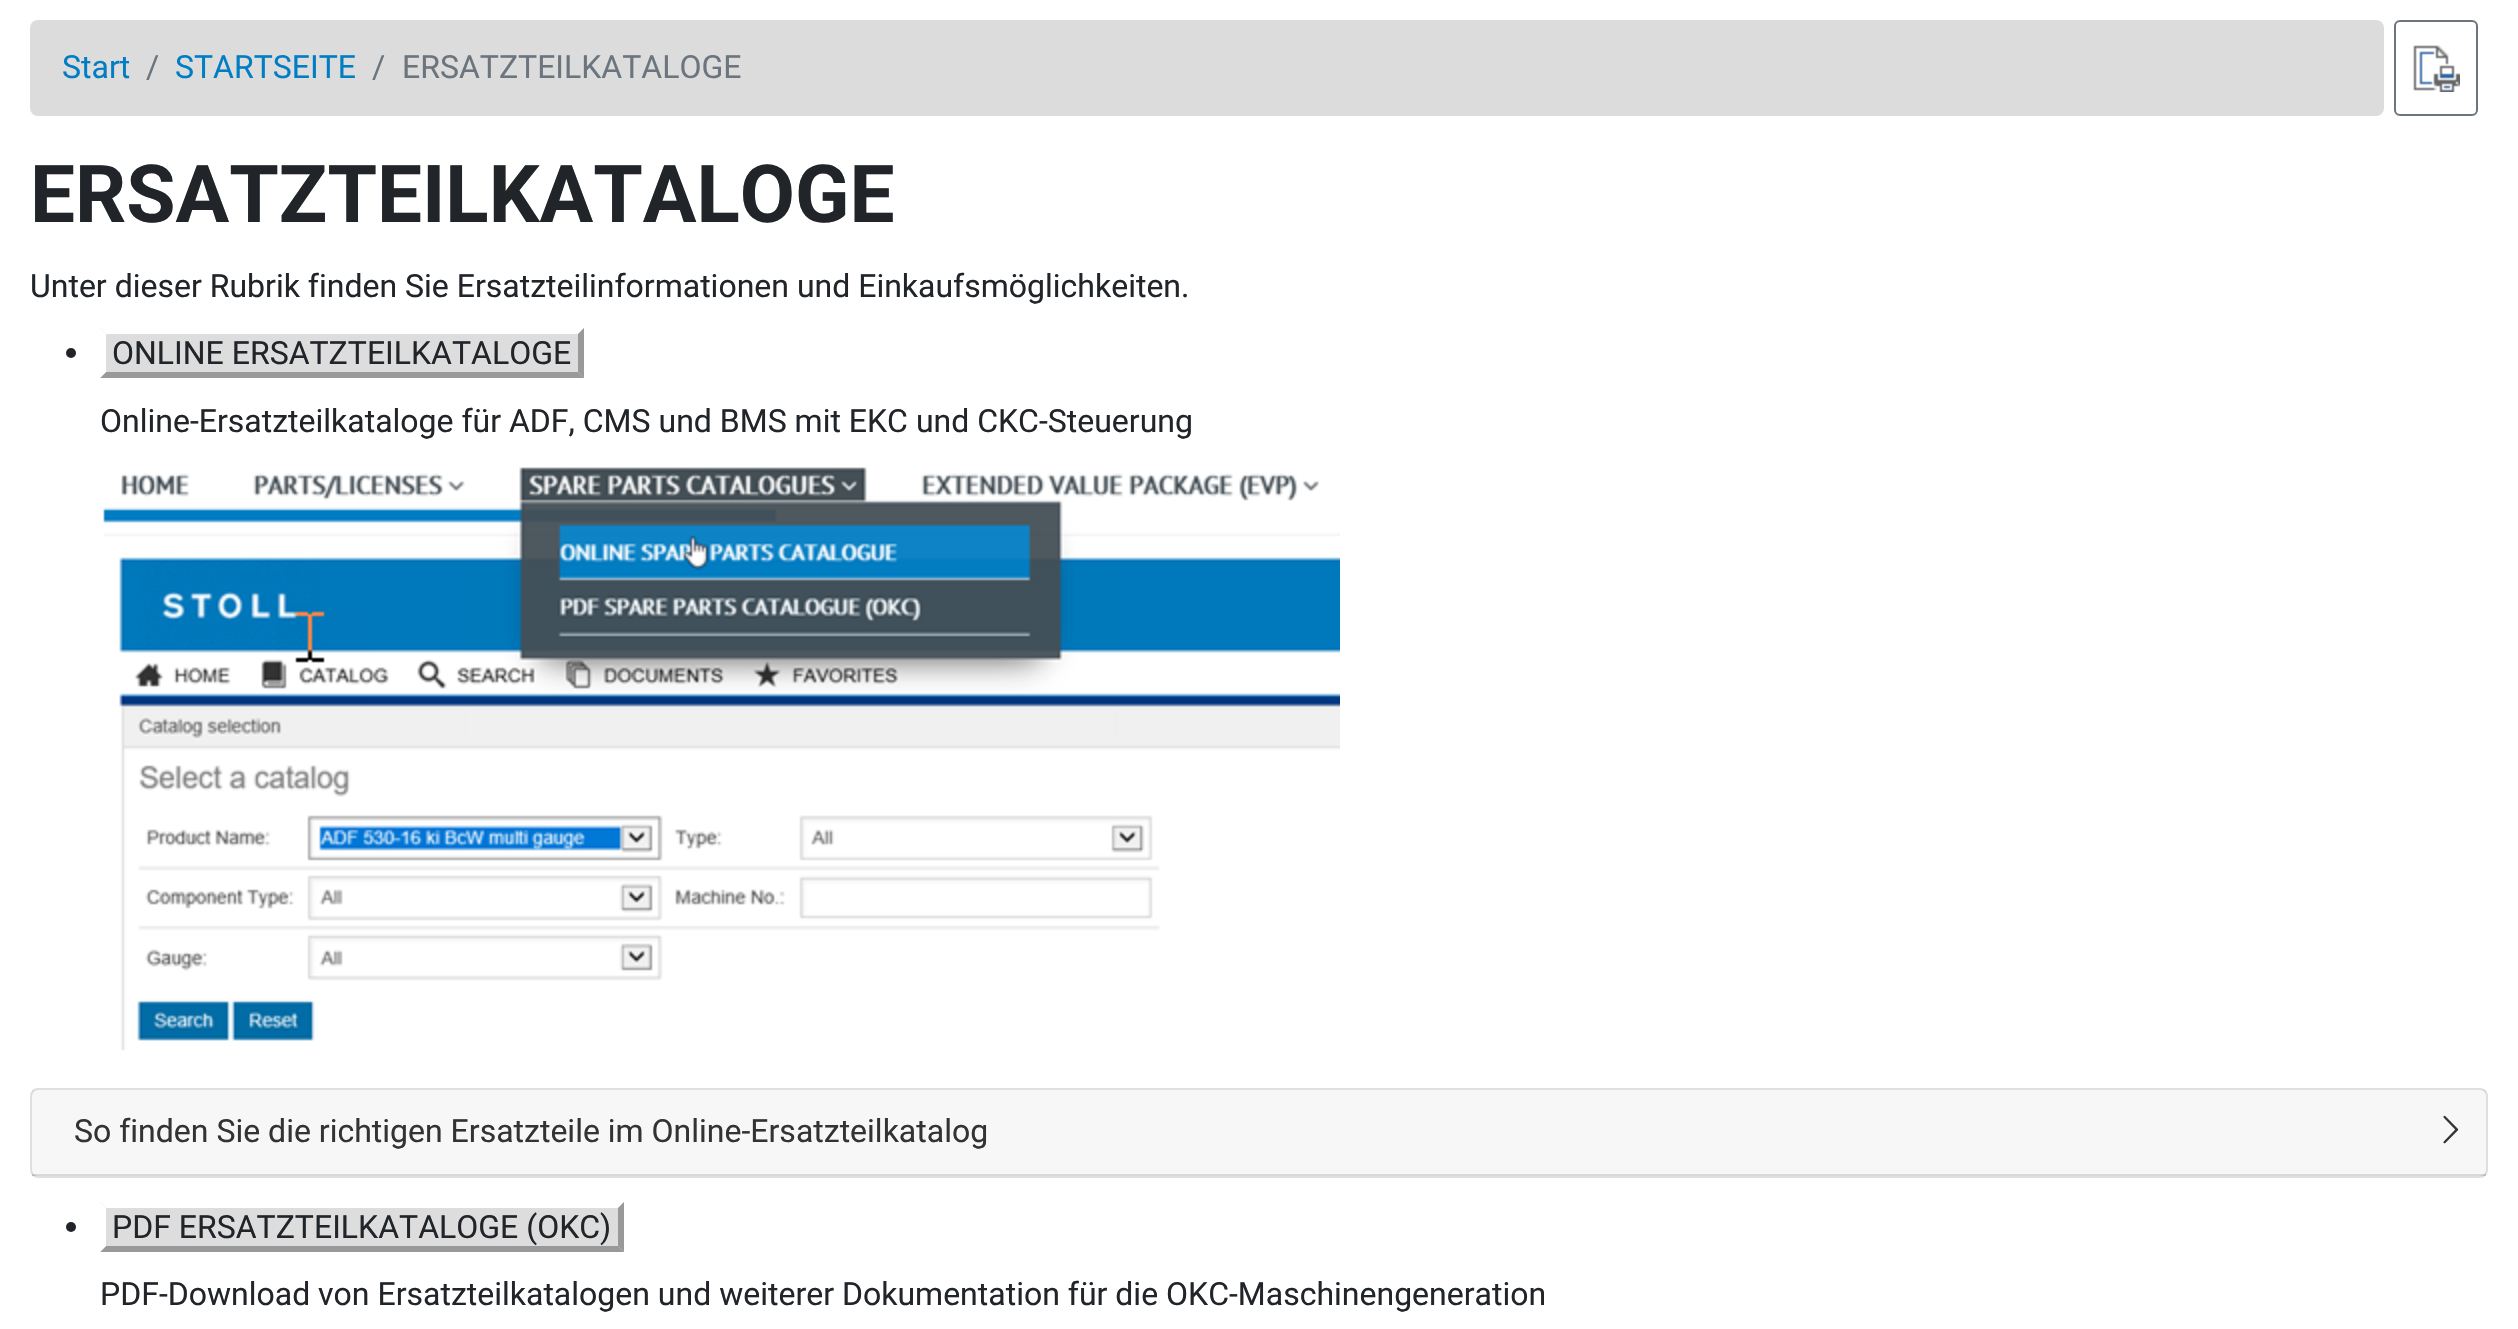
#include "include/core/SkBlurTypes.h"
#include "include/core/SkCanvas.h"
#include "include/core/SkData.h"
#include "include/core/SkFont.h"
#include "include/core/SkFontMgr.h"
#include "include/core/SkImage.h"
#include "include/core/SkMaskFilter.h"
#include "include/core/SkPaint.h"
#include "include/core/SkPathBuilder.h"
#include "include/core/SkTextBlob.h"
#include "include/effects/SkDashPathEffect.h"
#include "include/effects/SkGradientShader.h"
#include "include/utils/SkParsePath.h"

extern sk_sp<SkFontMgr> fontMgr;

void draw(SkCanvas* canvas) {
    SkPaint p;
    p.setAntiAlias(true);
    auto font = [&](const char* family, int weight, float size, bool italic = false) {
        SkFontStyle style(weight, SkFontStyle::kNormal_Width,
            italic ? SkFontStyle::kItalic_Slant : SkFontStyle::kUpright_Slant);
        SkFont result(fontMgr->matchFamilyStyle(family, style), size);
        result.setSubpixel(true);
        return result;
    };
    auto drawPhoto = [&](const char* path, float l, float t, float r, float b) {
        auto image = SkImages::DeferredFromEncodedData(SkData::MakeFromFileName(path));
        canvas->drawImageRect(image, SkRect::MakeLTRB(l, t, r, b), SkSamplingOptions());
    };
    canvas->clear(0xFFFFFFFF);
    p.setColor(0xFFDCDCDC);
    canvas->drawRoundRect(SkRect::MakeLTRB(30, 20, 2384, 116), 8, 8, p);
    auto font1 = font("Roboto", 400, 32);
    p.setColor(0xFF007DC3);
    canvas->drawString("Start", 62, 78, font1, p);
    p.setColor(0xFF6C757D);
    canvas->drawString("/", 146, 78, font1, p);
    p.setColor(0xFF007DC3);
    canvas->drawString("STARTSEITE", 175, 78, font1, p);
    p.setColor(0xFF6C757D);
    canvas->drawString("/", 372, 78, font1, p);
    canvas->drawString("ERSATZTEILKATALOGE", 402, 78, font1, p);
    p.setStyle(SkPaint::kStroke_Style);
    p.setStrokeWidth(2);
    canvas->drawRoundRect(SkRect::MakeLTRB(2395, 21, 2477, 115), 5, 5, p);
    drawPhoto("media/1.png", 2413, 45, 2460, 92);
    auto font2 = font("Roboto", 700, 80);
    p.setStyle(SkPaint::kFill_Style);
    p.setColor(0xFF212529);
    canvas->drawString("ERSATZTEILKATALOGE", 30, 222, font2, p);
    canvas->drawString("Unter dieser Rubrik finden Sie Ersatzteilinformationen und Einkaufsmöglichkeiten.", 30, 297, font1, p);
    canvas->drawCircle(71, 353, 5, p);
    p.setColor(0xFFDDDDDD);
    canvas->drawRect(SkRect::MakeLTRB(100, 328, 584, 378), p);
    p.setColor(0xFF212529);
    canvas->drawString("ONLINE ERSATZTEILKATALOGE", 112, 364, font1, p);
    p.setColor(0xFFFFFFFF);
    canvas->drawPath(SkPathBuilder().moveTo(100, 328).lineTo(584, 328).lineTo(578, 334).lineTo(106, 334).close().detach(), p);
    p.setColor(0xFF999999);
    canvas->drawPath(SkPathBuilder().moveTo(584, 328).lineTo(584, 378).lineTo(578, 372).lineTo(578, 334).close().detach(), p);
    canvas->drawPath(SkPathBuilder().moveTo(584, 378).lineTo(100, 378).lineTo(106, 372).lineTo(578, 372).close().detach(), p);
    p.setColor(0xFFFFFFFF);
    canvas->drawPath(SkPathBuilder().moveTo(100, 378).lineTo(100, 328).lineTo(106, 334).lineTo(106, 372).close().detach(), p);
    p.setColor(0xFF212529);
    canvas->drawString("Online-Ersatzteilkataloge für ADF, CMS und BMS mit EKC und CKC-Steuerung", 100, 432, font1, p);
    drawPhoto("media/2.png", 103, 467, 1340, 1051);
    p.setStyle(SkPaint::kStroke_Style);
    p.setColor(0xFFDFDFDF);
    canvas->drawRoundRect(SkRect::MakeLTRB(31, 1089, 2487, 1177), 7, 7, p);
    p.setStyle(SkPaint::kFill_Style);
    p.setColor(0x08000000);
    canvas->drawRect(SkRect::MakeLTRB(32, 1090, 2486, 1176), p);
    p.setColor(0x1F000000);
    canvas->drawRect(SkRect::MakeLTRB(32, 1174, 2486, 1176), p);
    p.setColor(0xFF333333);
    canvas->drawString("So finden Sie die richtigen Ersatzteile im Online-Ersatzteilkatalog", 74, 1142, font1, p);
    drawPhoto("media/3.png", 2443, 1115, 2459, 1144);
    p.setColor(0xFF212529);
    canvas->drawCircle(71, 1227, 5, p);
    p.setColor(0xFFDDDDDD);
    canvas->drawRect(SkRect::MakeLTRB(100, 1202, 624, 1252), p);
    p.setColor(0xFF212529);
    canvas->drawString("PDF ERSATZTEILKATALOGE (OKC)", 112, 1238, font1, p);
    p.setColor(0xFFFFFFFF);
    canvas->drawPath(SkPathBuilder().moveTo(100, 1202).lineTo(624, 1202).lineTo(618, 1208).lineTo(106, 1208).close().detach(), p);
    p.setColor(0xFF999999);
    canvas->drawPath(SkPathBuilder().moveTo(624, 1202).lineTo(624, 1252).lineTo(618, 1246).lineTo(618, 1208).close().detach(), p);
    canvas->drawPath(SkPathBuilder().moveTo(624, 1252).lineTo(100, 1252).lineTo(106, 1246).lineTo(618, 1246).close().detach(), p);
    p.setColor(0xFFFFFFFF);
    canvas->drawPath(SkPathBuilder().moveTo(100, 1252).lineTo(100, 1202).lineTo(106, 1208).lineTo(106, 1246).close().detach(), p);
    p.setColor(0xFF212529);
    canvas->drawString("PDF-Download von Ersatzteilkatalogen und weiterer Dokumentation für die OKC-Maschinengeneration", 100, 1305, font1, p);
}
